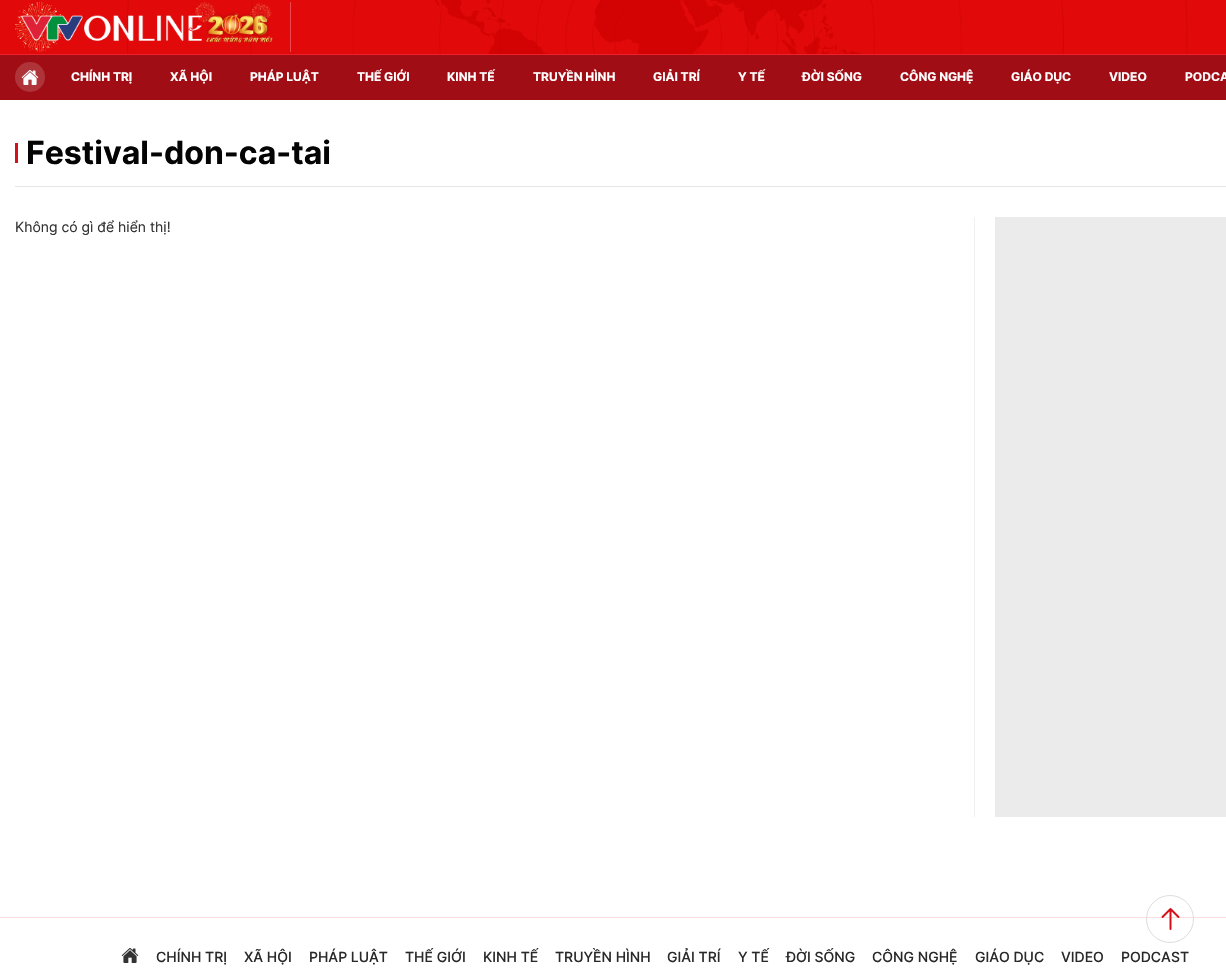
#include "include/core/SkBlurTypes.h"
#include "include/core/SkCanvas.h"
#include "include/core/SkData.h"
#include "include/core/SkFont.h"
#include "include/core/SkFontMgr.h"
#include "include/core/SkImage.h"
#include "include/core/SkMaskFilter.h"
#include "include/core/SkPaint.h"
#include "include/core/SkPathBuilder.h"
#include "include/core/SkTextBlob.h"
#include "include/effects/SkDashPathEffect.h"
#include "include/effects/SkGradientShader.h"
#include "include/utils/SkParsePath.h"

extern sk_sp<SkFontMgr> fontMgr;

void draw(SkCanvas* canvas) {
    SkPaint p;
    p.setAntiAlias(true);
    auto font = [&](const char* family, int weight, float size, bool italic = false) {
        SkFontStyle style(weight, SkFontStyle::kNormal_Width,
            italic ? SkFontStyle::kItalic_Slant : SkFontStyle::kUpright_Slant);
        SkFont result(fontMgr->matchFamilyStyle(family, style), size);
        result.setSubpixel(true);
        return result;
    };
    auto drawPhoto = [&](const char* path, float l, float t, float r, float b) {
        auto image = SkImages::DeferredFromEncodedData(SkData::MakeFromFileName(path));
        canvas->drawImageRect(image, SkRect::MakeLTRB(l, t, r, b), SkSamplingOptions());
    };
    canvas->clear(0xFFFFFFFF);
    drawPhoto("media/1.png", 0, 0, 1226, 54);
    drawPhoto("media/2.png", 15, 2, 273, 52);
    {
        const struct { float l, t, r, b; SkColor color; } items[] = {
            {290, 2, 291, 52, 0xFFF0464F},
            {0, 55, 1226, 100, 0xFFA00D14},
            {0, 54, 1226, 55, 0xFFED212B},
        };
        for (auto [l, t, r, b, color] : items) {
            p.setColor(color);
            canvas->drawRect(SkRect::MakeLTRB(l, t, r, b), p);
        }
    }
    p.setColor(0xFFAF343A);
    canvas->drawCircle(30, 77, 15, p);
    drawPhoto("media/3.png", 21, 70, 39, 85);
    auto font1 = font("Inter", 700, 12);
    p.setColor(0xFFFFFFFF);
    {
        const struct { const char* s; float x, y; } items[] = {
            {"CHÍNH TRỊ", 71, 81},
            {"XÃ HỘI", 170, 81},
            {"PHÁP LUẬT", 250, 81},
            {"THẾ GIỚI", 357, 81},
            {"KINH TẾ", 447, 81},
            {"TRUYỀN HÌNH", 533, 81},
            {"GIẢI TRÍ", 653, 81},
            {"Y TẾ", 738, 81},
            {"ĐỜI SỐNG", 802, 81},
            {"CÔNG NGHỆ", 900, 81},
            {"GIÁO DỤC", 1011, 81},
            {"VIDEO", 1109, 81},
            {"PODCA", 1185, 81},
        };
        for (auto [s, x, y] : items) {
            canvas->drawString(s, x, y, font1, p);
        }
    }
    p.setColor(0xFFD4111B);
    canvas->drawRect(SkRect::MakeLTRB(15, 143, 18, 163), p);
    auto font2 = font("Inter", 700, 32);
    p.setColor(0xFF040404);
    canvas->drawString("Festival-don-ca-tai", 26, 164, font2, p);
    p.setColor(0xFFE5E5E5);
    canvas->drawRect(SkRect::MakeLTRB(15, 186, 1226, 187), p);
    auto font3 = font("Inter", 400, 14);
    p.setColor(0xFF333333);
    canvas->drawString("Không có gì để hiển thị!", 15, 232, font3, p);
    {
        const struct { float l, t, r, b; SkColor color; } items[] = {
            {974, 217, 975, 817, 0xFFF1F1F1},
            {995, 217, 1226, 817, 0xFFEBEBEB},
            {0, 917, 1226, 918, 0xFFFCDDDF},
        };
        for (auto [l, t, r, b, color] : items) {
            p.setColor(color);
            canvas->drawRect(SkRect::MakeLTRB(l, t, r, b), p);
        }
    }
    p.setStyle(SkPaint::kStroke_Style);
    p.setStrokeWidth(1);
    p.setColor(0xFFDDDDDD);
    canvas->drawCircle(1170, 919, 23.5f, p);
    p.setStrokeWidth(2);
    p.setStrokeCap(SkPaint::kRound_Cap);
    p.setStrokeJoin(SkPaint::kRound_Join);
    p.setColor(0xFFD4111B);
    canvas->drawPath(SkPathBuilder().moveTo(1162.5f, 917).lineTo(1170.5f, 909).moveTo(1170.5f, 909).lineTo(1178.5f, 917).moveTo(1170.5f, 909).lineTo(1170.5f, 929).detach(), p);
    drawPhoto("media/4.png", 121, 948, 139, 963);
    auto font4 = font("Inter", 500, 14);
    p.setStyle(SkPaint::kFill_Style);
    p.setColor(0xFF292929);
    {
        const struct { const char* s; float x, y; } items[] = {
            {"CHÍNH TRỊ", 156, 962},
            {"XÃ HỘI", 244, 962},
            {"PHÁP LUẬT", 309, 962},
            {"THẾ GIỚI", 405, 962},
            {"KINH TẾ", 483, 962},
            {"TRUYỀN HÌNH", 555, 962},
            {"GIẢI TRÍ", 667, 962},
            {"Y TẾ", 738, 962},
            {"ĐỜI SỐNG", 786, 962},
            {"CÔNG NGHỆ", 872, 962},
            {"GIÁO DỤC", 975, 962},
            {"VIDEO", 1061, 962},
            {"PODCAST", 1121, 962},
        };
        for (auto [s, x, y] : items) {
            canvas->drawString(s, x, y, font4, p);
        }
    }
}
